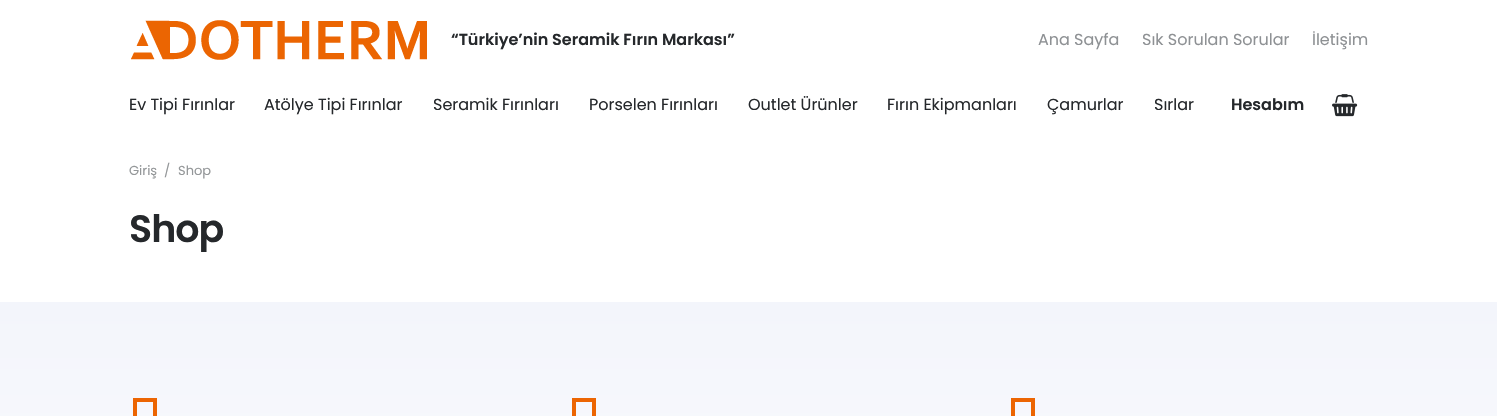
#include "include/core/SkBlurTypes.h"
#include "include/core/SkCanvas.h"
#include "include/core/SkData.h"
#include "include/core/SkFont.h"
#include "include/core/SkFontMgr.h"
#include "include/core/SkImage.h"
#include "include/core/SkMaskFilter.h"
#include "include/core/SkPaint.h"
#include "include/core/SkPathBuilder.h"
#include "include/core/SkTextBlob.h"
#include "include/effects/SkDashPathEffect.h"
#include "include/effects/SkGradientShader.h"
#include "include/utils/SkParsePath.h"

extern sk_sp<SkFontMgr> fontMgr;

void draw(SkCanvas* canvas) {
    SkPaint p;
    p.setAntiAlias(true);
    auto font = [&](const char* family, int weight, float size, bool italic = false) {
        SkFontStyle style(weight, SkFontStyle::kNormal_Width,
            italic ? SkFontStyle::kItalic_Slant : SkFontStyle::kUpright_Slant);
        SkFont result(fontMgr->matchFamilyStyle(family, style), size);
        result.setSubpixel(true);
        return result;
    };
    auto drawTracked = [&](const char* s, float x, float y, const SkFont& font, const SkPaint& ink, float letter, float word) {
        std::vector<SkGlyphID> glyphs(font.countText(s, strlen(s), SkTextEncoding::kUTF8));
        std::vector<float> xs(glyphs.size());
        font.textToGlyphs(s, strlen(s), SkTextEncoding::kUTF8, glyphs);
        font.getXPos(glyphs, xs, x);
        float extra = 0;
        for (size_t i = 0; i < glyphs.size(); i++) {
            xs[i] += extra;
            extra += letter + word * (glyphs[i] == font.unicharToGlyph(' '));
        }
        canvas->drawTextBlob(SkTextBlob::MakeFromPosHGlyphs(glyphs, xs, y, font), 0, 0, ink);
    };
    auto drawPhoto = [&](const char* path, float l, float t, float r, float b) {
        auto image = SkImages::DeferredFromEncodedData(SkData::MakeFromFileName(path));
        canvas->drawImageRect(image, SkRect::MakeLTRB(l, t, r, b), SkSamplingOptions());
    };
    canvas->clear(0xFFFFFFFF);
    drawPhoto("media/1.png", 131, 20, 427, 60);
    auto font1 = font("Poppins", 600, 16);
    p.setColor(0xFF25282B);
    canvas->drawString("“Türkiye’nin Seramik Fırın Markası”", 451, 45, font1, p);
    auto font2 = font("Poppins", 400, 16);
    p.setColor(0xFF8E9194);
    {
        const struct { const char* s; float x, y; } items[] = {
            {"Ana Sayfa", 1038, 45},
            {"Sık Sorulan Sorular", 1142, 45},
            {"İletişim", 1312, 45},
        };
        for (auto [s, x, y] : items) {
            canvas->drawString(s, x, y, font2, p);
        }
    }
    p.setColor(0xFF25282B);
    {
        const struct { const char* s; float x, y; } items[] = {
            {"Ev Tipi Fırınlar", 129, 110},
            {"Atölye Tipi Fırınlar", 264, 110},
            {"Seramik Fırınları", 433, 110},
            {"Porselen Fırınları", 589, 110},
            {"Outlet Ürünler", 748, 110},
            {"Fırın Ekipmanları", 887, 110},
            {"Çamurlar", 1047, 110},
            {"Sırlar", 1154, 110},
        };
        for (auto [s, x, y] : items) {
            canvas->drawString(s, x, y, font2, p);
        }
    }
    canvas->drawString("Hesabım", 1231, 110, font1, p);
    drawPhoto("media/2.png", 1332, 94, 1358, 117);
    auto font3 = font("Poppins", 400, 13);
    p.setColor(0xFF949799);
    {
        const struct { const char* s; float x, y; } items[] = {
            {"Giriş", 129, 175},
            {"/", 164, 175},
            {"Shop", 178, 175},
        };
        for (auto [s, x, y] : items) {
            canvas->drawString(s, x, y, font3, p);
        }
    }
    auto font4 = font("Poppins", 600, 38);
    p.setColor(0xFF25282B);
    drawTracked("Shop", 129, 242, font4, p, -1, 0);
    {
        const SkColor colors[] = {0xFFF3F5FB, 0xFFFFFFFF};
        const float stops[] = {0, 1};
        const SkPoint ends[] = {{749, 302}, {749, 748}};
        p.setShader(SkGradientShader::MakeLinear(ends, colors, stops, 2, SkTileMode::kClamp));
        p.setAlpha(255);
    }
    canvas->drawRect(SkRect::MakeLTRB(0, 302, 1497, 416), p);
    p.setShader(nullptr);
    p.setColor(0xFFEC6502);
    canvas->drawPath(SkPathBuilder().moveTo(137, 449).lineTo(137, 402).lineTo(153, 402).lineTo(153, 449).close().moveTo(133, 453).lineTo(157, 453).lineTo(157, 398).lineTo(133, 398).close().detach(), p);
    canvas->drawPath(SkPathBuilder().moveTo(576, 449).lineTo(576, 402).lineTo(592, 402).lineTo(592, 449).close().moveTo(572, 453).lineTo(596, 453).lineTo(596, 398).lineTo(572, 398).close().detach(), p);
    canvas->drawPath(SkPathBuilder().moveTo(1015, 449).lineTo(1015, 402).lineTo(1031, 402).lineTo(1031, 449).close().moveTo(1011, 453).lineTo(1035, 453).lineTo(1035, 398).lineTo(1011, 398).close().detach(), p);
}
